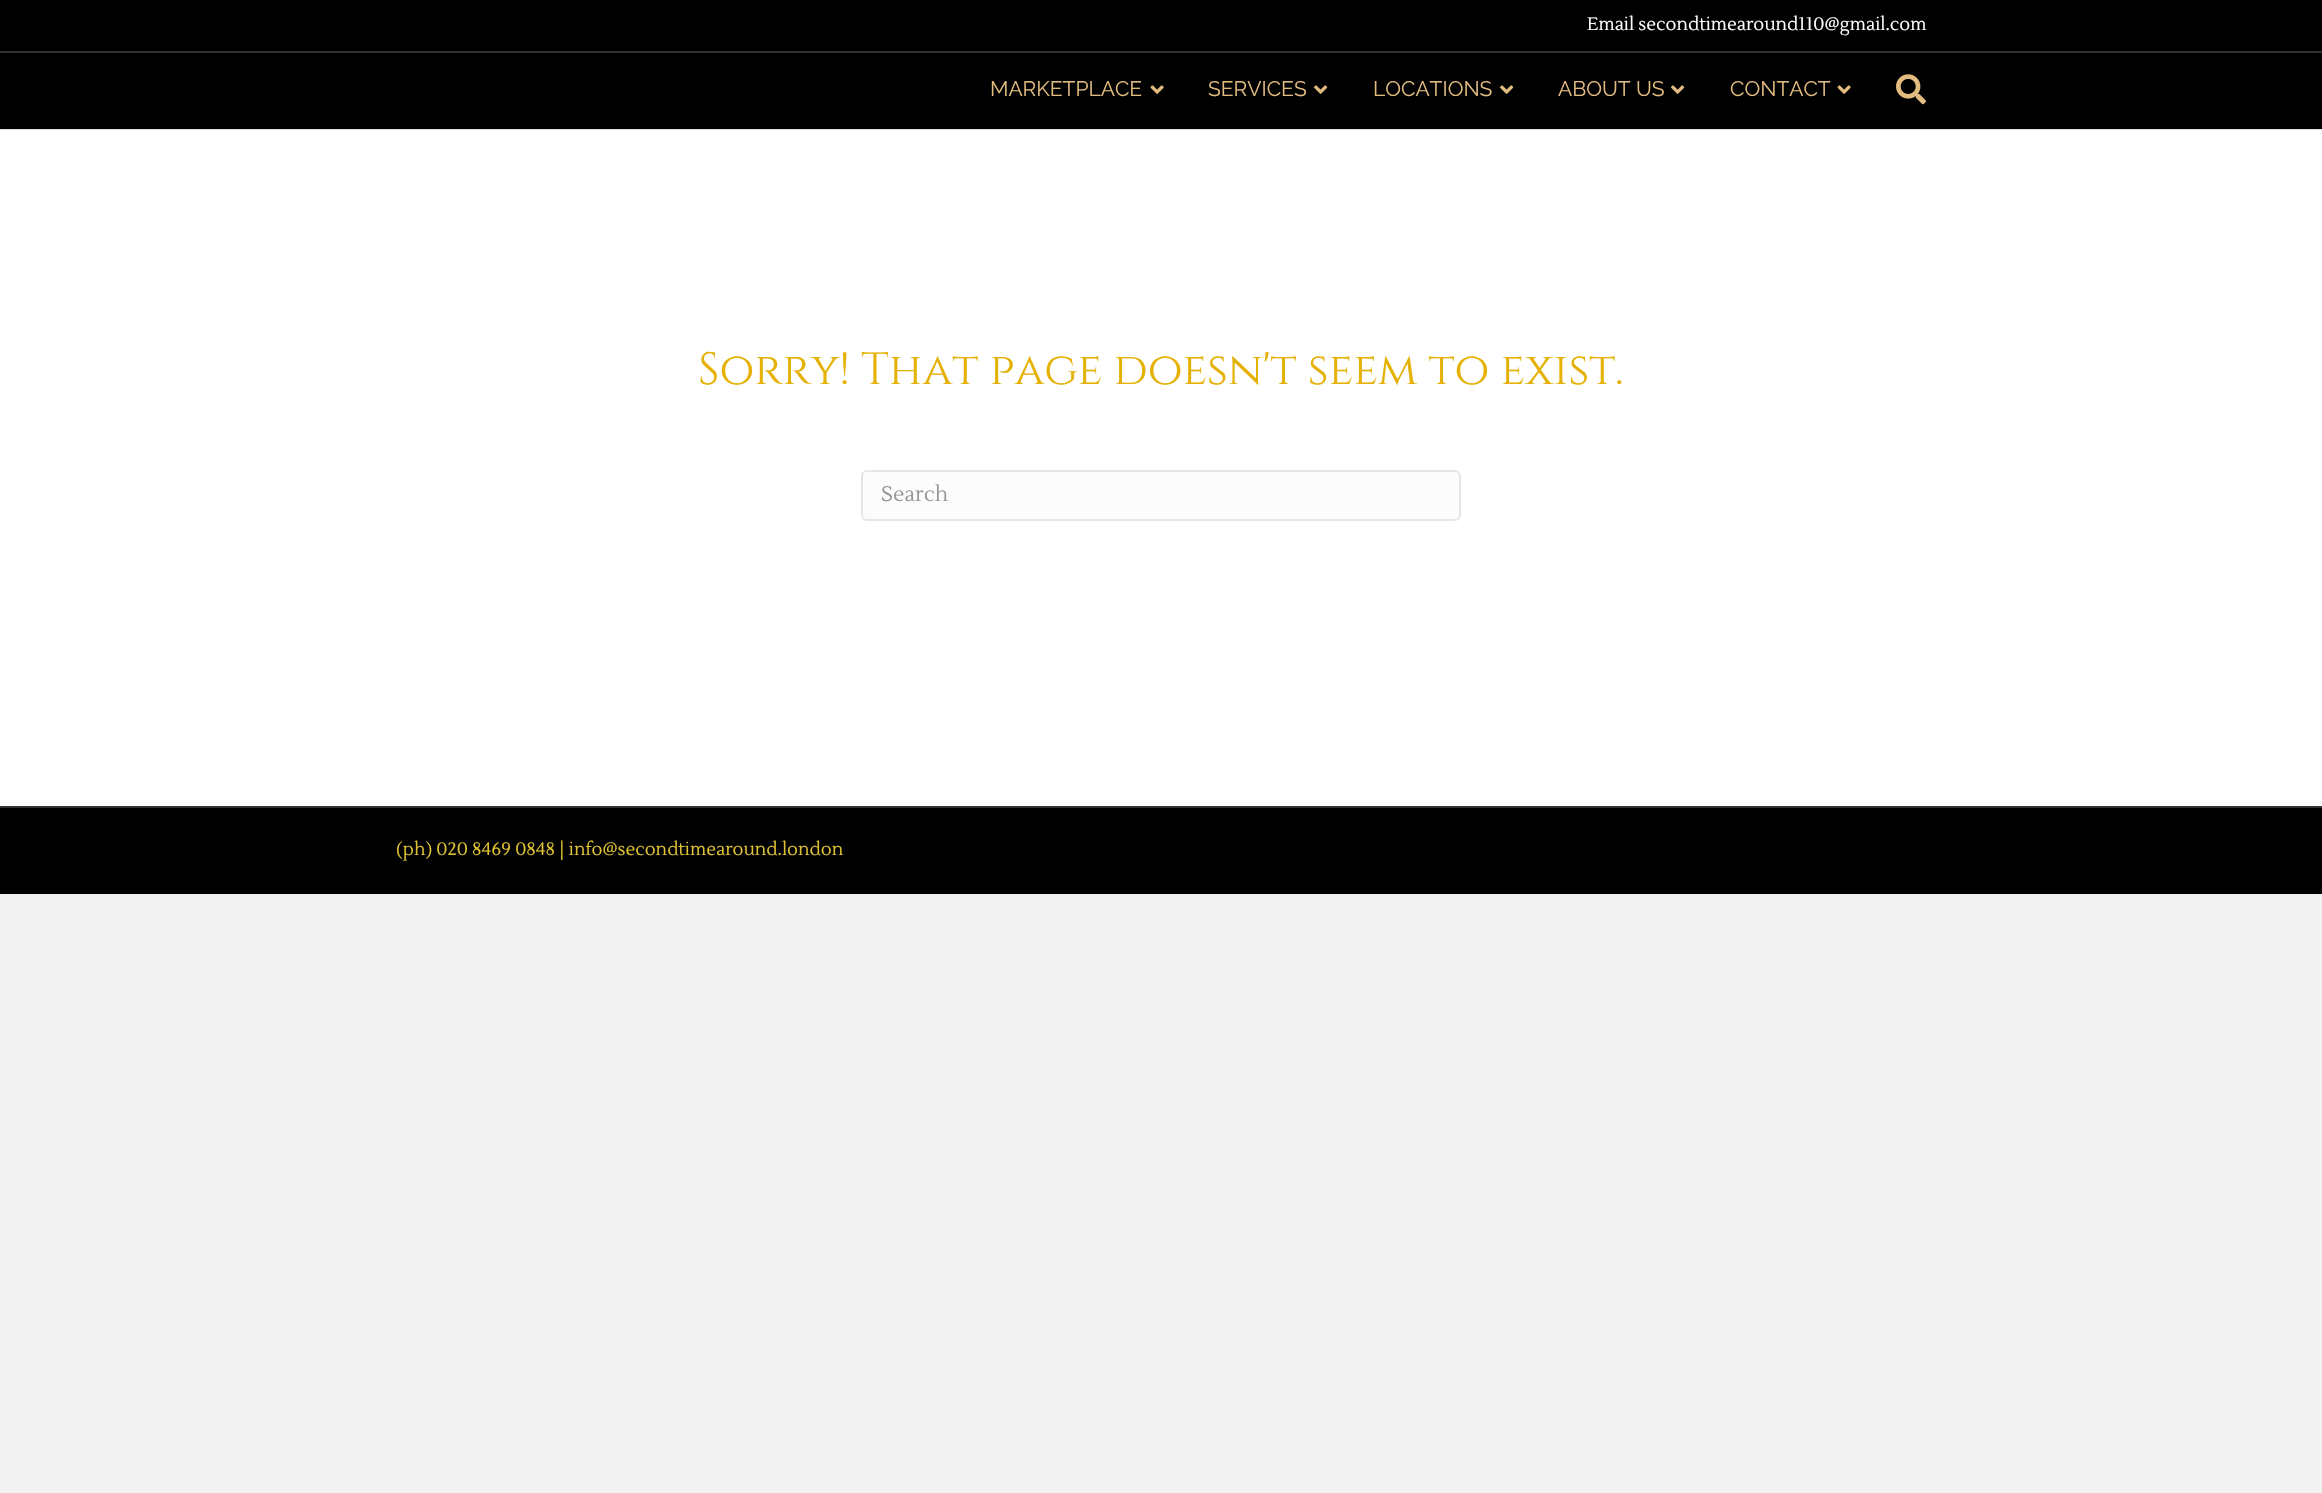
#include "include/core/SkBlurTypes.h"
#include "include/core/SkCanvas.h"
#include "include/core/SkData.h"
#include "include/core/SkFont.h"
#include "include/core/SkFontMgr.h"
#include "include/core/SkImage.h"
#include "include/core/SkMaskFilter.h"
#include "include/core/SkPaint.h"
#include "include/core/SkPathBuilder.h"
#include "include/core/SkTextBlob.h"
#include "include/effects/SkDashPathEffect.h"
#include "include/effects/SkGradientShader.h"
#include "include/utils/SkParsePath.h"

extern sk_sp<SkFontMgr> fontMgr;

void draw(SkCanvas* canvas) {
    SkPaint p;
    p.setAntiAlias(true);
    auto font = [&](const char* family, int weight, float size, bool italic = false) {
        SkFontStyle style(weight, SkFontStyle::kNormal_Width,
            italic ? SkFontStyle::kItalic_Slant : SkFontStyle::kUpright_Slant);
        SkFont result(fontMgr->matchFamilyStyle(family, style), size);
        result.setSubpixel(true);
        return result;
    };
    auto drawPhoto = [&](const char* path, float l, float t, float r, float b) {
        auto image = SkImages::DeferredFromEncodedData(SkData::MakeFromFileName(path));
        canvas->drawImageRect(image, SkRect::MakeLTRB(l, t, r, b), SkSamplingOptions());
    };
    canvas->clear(0xFFF2F2F2);
    p.setColor(0xFF000000);
    canvas->drawRect(SkRect::MakeLTRB(0, 0, 2322, 51), p);
    p.setColor(0xFF303030);
    canvas->drawRect(SkRect::MakeLTRB(0, 51, 2322, 53), p);
    auto font1 = font("Lustria", 400, 18);
    p.setColor(0xFFFFFFFF);
    canvas->drawString("Email secondtimearound110@gmail.com", 1587, 30, font1, p);
    p.setColor(0xFF000000);
    canvas->drawRect(SkRect::MakeLTRB(0, 53, 2322, 129), p);
    auto font2 = font("Raleway", 100, 21);
    p.setColor(0xFFE2BC7F);
    canvas->drawString("MARKETPLACE", 990, 96, font2, p);
    drawPhoto("media/1.png", 1150, 85, 1164, 94);
    canvas->drawString("SERVICES", 1208, 96, font2, p);
    drawPhoto("media/2.png", 1314, 85, 1328, 94);
    canvas->drawString("LOCATIONS", 1373, 96, font2, p);
    drawPhoto("media/2.png", 1500, 85, 1514, 94);
    canvas->drawString("ABOUT US", 1558, 96, font2, p);
    drawPhoto("media/2.png", 1671, 85, 1685, 94);
    canvas->drawString("CONTACT", 1730, 96, font2, p);
    drawPhoto("media/1.png", 1837, 85, 1851, 94);
    drawPhoto("media/3.png", 1896, 74, 1926, 105);
    p.setColor(0xFFFFFFFF);
    canvas->drawRect(SkRect::MakeLTRB(0, 130, 2322, 806), p);
    p.setColor(0xFFDEDEDE);
    canvas->drawRect(SkRect::MakeLTRB(0, 129, 2322, 130), p);
    auto font3 = font("Cinzel", 400, 45);
    p.setColor(0xFFE5B104);
    canvas->drawString("Sorry! That page doesn't seem to exist.", 698, 384, font3, p);
    p.setColor(0xFFFCFCFC);
    canvas->drawRoundRect(SkRect::MakeLTRB(862, 471, 1460, 520), 5, 5, p);
    p.setStyle(SkPaint::kStroke_Style);
    p.setStrokeWidth(2);
    p.setColor(0xFFE6E6E6);
    canvas->drawRoundRect(SkRect::MakeLTRB(862, 471, 1460, 520), 5, 5, p);
    auto font4 = font("Lustria", 400, 21);
    p.setStyle(SkPaint::kFill_Style);
    p.setColor(0xFF979797);
    canvas->drawString("Search", 881, 501, font4, p);
    p.setColor(0xFF000000);
    canvas->drawRect(SkRect::MakeLTRB(0, 808, 2322, 894), p);
    p.setColor(0xFF303030);
    canvas->drawRect(SkRect::MakeLTRB(0, 806, 2322, 808), p);
    p.setColor(0xFFE0C333);
    canvas->drawString("(ph) 020 8469 0848 | info@secondtimearound.london", 396, 855, font1, p);
}
